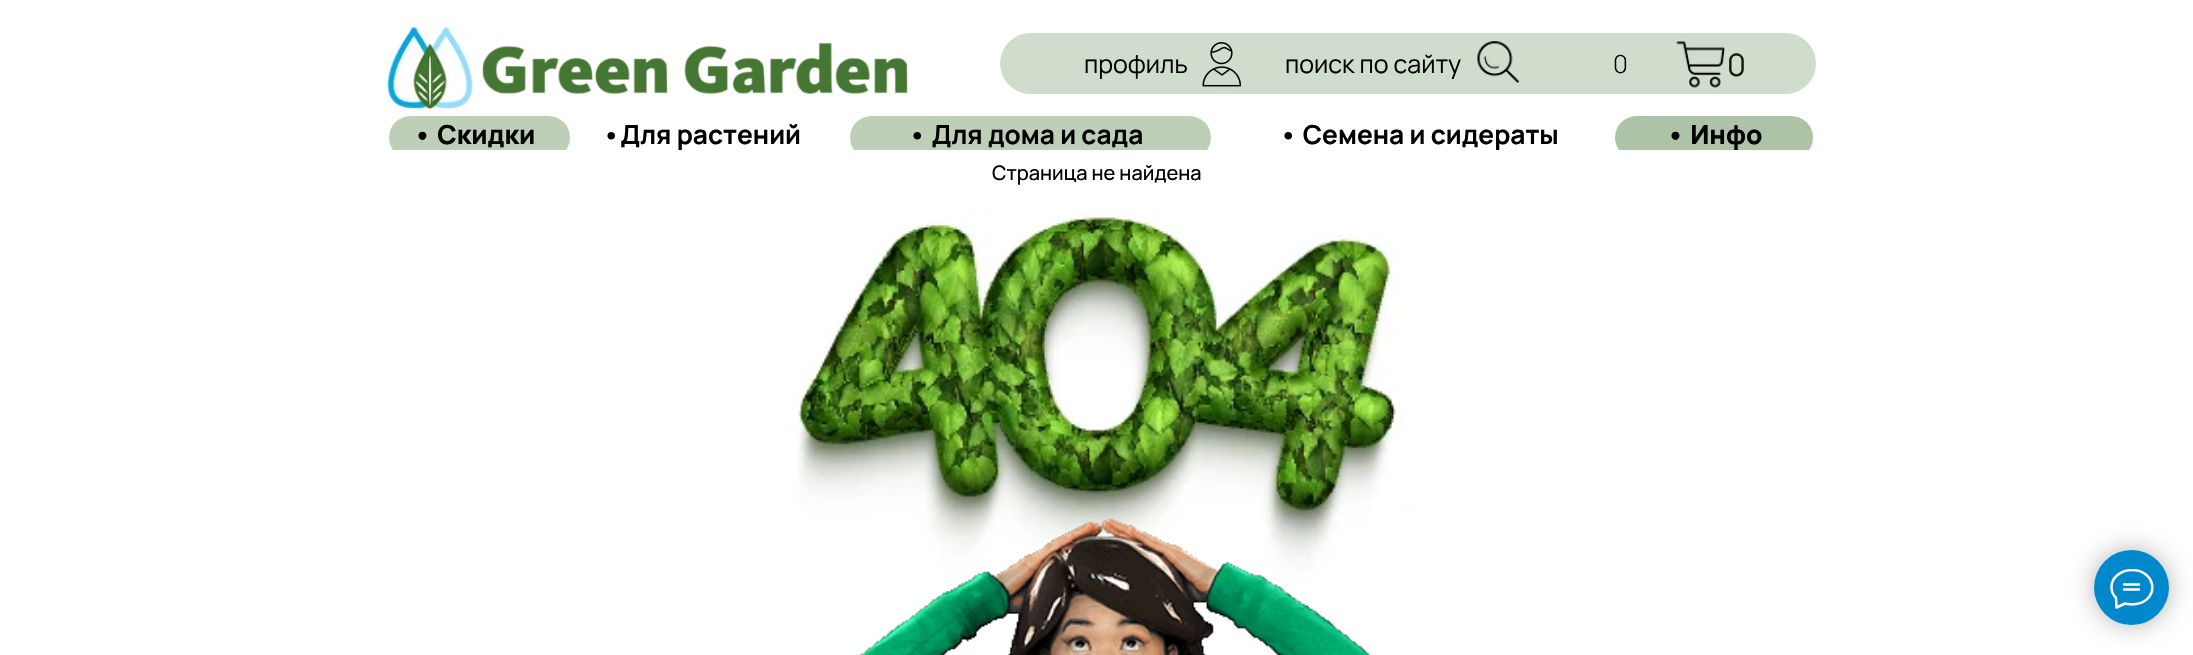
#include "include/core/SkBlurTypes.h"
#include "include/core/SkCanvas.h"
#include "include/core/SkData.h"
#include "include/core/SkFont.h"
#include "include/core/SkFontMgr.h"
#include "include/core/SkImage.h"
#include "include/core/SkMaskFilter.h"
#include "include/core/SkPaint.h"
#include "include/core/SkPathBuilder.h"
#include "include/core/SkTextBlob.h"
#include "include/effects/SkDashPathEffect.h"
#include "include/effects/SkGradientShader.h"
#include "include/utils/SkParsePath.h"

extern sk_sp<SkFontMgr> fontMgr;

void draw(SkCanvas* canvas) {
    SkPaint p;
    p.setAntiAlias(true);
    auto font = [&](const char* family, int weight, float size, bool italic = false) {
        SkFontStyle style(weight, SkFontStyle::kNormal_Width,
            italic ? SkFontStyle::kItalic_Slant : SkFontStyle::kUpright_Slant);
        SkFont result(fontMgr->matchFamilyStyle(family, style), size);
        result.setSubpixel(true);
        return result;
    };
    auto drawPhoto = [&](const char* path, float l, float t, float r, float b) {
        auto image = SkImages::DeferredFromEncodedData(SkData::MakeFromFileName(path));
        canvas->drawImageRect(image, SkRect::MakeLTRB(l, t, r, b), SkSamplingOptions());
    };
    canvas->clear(0xFFFFFFFF);
    drawPhoto("media/1.png", 386, 26, 474, 109);
    auto font1 = font("Manrope", 400, 31);
    p.setColor(0xFF000000);
    canvas->drawString("0", 1727, 76, font1, p);
    p.setColor(0x40447733);
    canvas->drawRoundRect(SkRect::MakeLTRB(1000, 33, 1816, 94), 30.5f, 30.5f, p);
    drawPhoto("media/2.png", 482, 42, 908, 95);
    auto font2 = font("Manrope", 400, 25);
    p.setColor(0xFF000000);
    canvas->drawString("профиль", 1084, 73, font2, p);
    drawPhoto("media/3.png", 1202, 42, 1242, 87);
    canvas->drawString("поиск по сайту", 1285, 73, font2, p);
    drawPhoto("media/4.png", 1477, 41, 1519, 83);
    auto font3 = font("Manrope", 300, 25);
    canvas->drawString("0", 1613, 73, font3, p);
    drawPhoto("media/5.png", 1676, 41, 1725, 88);
    canvas->save();
    canvas->clipRect(SkRect::MakeLTRB(0, 0, 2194, 150));
    p.setColor(0xFFBDCFB7);
    canvas->drawRoundRect(SkRect::MakeLTRB(389, 116, 570, 159), 21.5f, 21.5f, p);
    canvas->drawRoundRect(SkRect::MakeLTRB(850, 116, 1211, 159), 21.5f, 21.5f, p);
    p.setColor(0xFFADC3A5);
    canvas->drawRoundRect(SkRect::MakeLTRB(1615, 116, 1813, 159), 21.5f, 21.5f, p);
    canvas->restore();
    auto font4 = font("Manrope", 800, 26.25f);
    p.setColor(0xFF000000);
    canvas->drawString("• Скидки", 413, 144, font4, p);
    canvas->save();
    canvas->clipRect(SkRect::MakeLTRB(0, 0, 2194, 150));
    auto font5 = font("Manrope", 700, 26.25f);
    canvas->drawString("•Для растений", 602, 144, font5, p);
    canvas->restore();
    canvas->drawString("• Для дома и сада", 908, 144, font5, p);
    canvas->save();
    canvas->clipRect(SkRect::MakeLTRB(0, 0, 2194, 150));
    canvas->drawString("• Семена и сидераты", 1279, 144, font5, p);
    canvas->restore();
    canvas->drawString("• Инфо", 1666, 144, font4, p);
    auto font6 = font("Manrope", 500, 20);
    canvas->drawString("Страница не найдена", 992, 180, font6, p);
    drawPhoto("media/6.png", 778, 205, 1419, 595);
    drawPhoto("media/7.png", 860, 518, 1370, 655);
    p.setColor(0x4D000000);
    p.setMaskFilter(SkMaskFilter::MakeBlur(kNormal_SkBlurStyle, 12.5f));
    canvas->drawRoundRect(SkRect::MakeLTRB(2094, 550, 2169, 625), 37.5f, 37.5f, p);
    p.setMaskFilter(nullptr);
    p.setColor(0xFF0088CC);
    canvas->drawCircle(2131.5f, 587.5f, 37.5f, p);
    canvas->save();
    canvas->clipRect(SkRect::MakeLTRB(2110, 569, 2154, 609));
    p.setStyle(SkPaint::kStroke_Style);
    p.setStrokeWidth(2.5f);
    p.setStrokeCap(SkPaint::kRound_Cap);
    p.setStrokeJoin(SkPaint::kRound_Join);
    p.setColor(0xFFFFFFFF);
    canvas->drawPath(SkPathBuilder().moveTo(2124, 584.5f).lineTo(2139, 584.5f).moveTo(2124, 589.5f).lineTo(2139, 589.5f).moveTo(2116, 598).cubicTo(2109.5f, 591.5f, 2110, 581, 2117.5f, 575).cubicTo(2121.5f, 571.5f, 2126.5f, 570, 2132, 570).cubicTo(2156, 570, 2160.5f, 600, 2136, 604).cubicTo(2132, 605, 2129, 604, 2125, 603.5f).lineTo(2116.5f, 607.5f).close().detach(), p);
    canvas->restore();
}
